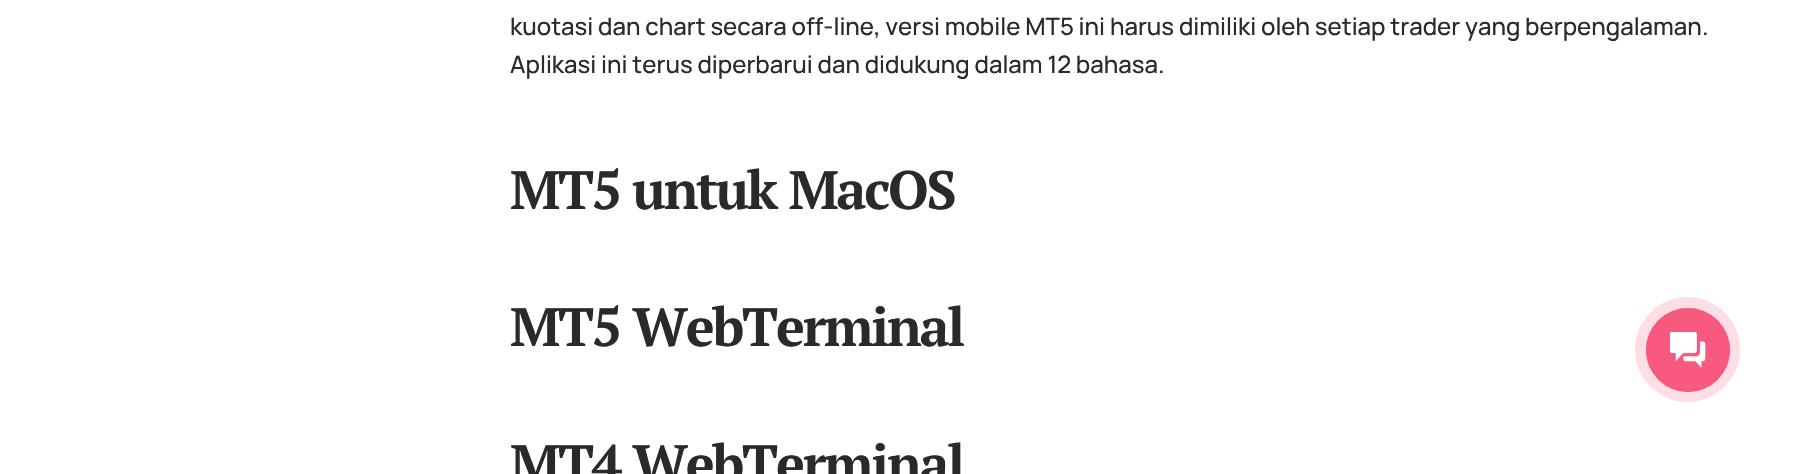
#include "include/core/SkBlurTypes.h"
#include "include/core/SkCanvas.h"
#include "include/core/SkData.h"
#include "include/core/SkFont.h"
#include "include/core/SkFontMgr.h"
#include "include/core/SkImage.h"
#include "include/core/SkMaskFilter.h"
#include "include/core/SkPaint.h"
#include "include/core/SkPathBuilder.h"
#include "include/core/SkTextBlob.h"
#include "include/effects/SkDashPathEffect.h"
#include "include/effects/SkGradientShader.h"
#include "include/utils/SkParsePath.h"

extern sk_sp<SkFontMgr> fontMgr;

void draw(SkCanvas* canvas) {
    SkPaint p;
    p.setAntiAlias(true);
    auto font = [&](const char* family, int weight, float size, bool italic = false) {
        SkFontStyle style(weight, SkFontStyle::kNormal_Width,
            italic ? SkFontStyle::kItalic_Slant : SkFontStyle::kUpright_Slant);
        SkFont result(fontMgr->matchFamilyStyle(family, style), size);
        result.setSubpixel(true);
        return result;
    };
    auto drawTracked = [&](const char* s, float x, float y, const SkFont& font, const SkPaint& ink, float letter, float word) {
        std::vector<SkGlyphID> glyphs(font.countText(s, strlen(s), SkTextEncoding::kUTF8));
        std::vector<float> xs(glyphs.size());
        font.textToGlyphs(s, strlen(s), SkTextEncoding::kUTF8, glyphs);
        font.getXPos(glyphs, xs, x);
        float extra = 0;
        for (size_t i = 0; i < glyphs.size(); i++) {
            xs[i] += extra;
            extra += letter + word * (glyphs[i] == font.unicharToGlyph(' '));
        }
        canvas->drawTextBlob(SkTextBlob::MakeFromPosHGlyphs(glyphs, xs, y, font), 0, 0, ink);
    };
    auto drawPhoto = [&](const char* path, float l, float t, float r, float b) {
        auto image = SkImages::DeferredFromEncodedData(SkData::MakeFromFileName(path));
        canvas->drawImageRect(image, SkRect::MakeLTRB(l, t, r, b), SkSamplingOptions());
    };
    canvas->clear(0xFFFFFFFF);
    auto font1 = font("Manrope", 500, 24);
    p.setColor(0xFF2A2A2A);
    canvas->drawString("kuotasi dan chart secara off-line, versi mobile MT5 ini harus dimiliki oleh setiap trader yang berpengalaman.", 510, 35, font1, p);
    canvas->drawString("Aplikasi ini terus diperbarui dan didukung dalam 12 bahasa.", 510, 73, font1, p);
    auto font2 = font("PT Serif", 700, 54);
    {
        const struct { const char* s; float x, y; } items[] = {
            {"MT5 untuk MacOS", 510, 209},
            {"MT5 WebTerminal", 510, 346},
            {"MT4 WebTerminal", 510, 483},
        };
        for (auto [s, x, y] : items) {
            drawTracked(s, x, y, font2, p, -2.25f, 0);
        }
    }
    p.setColor(0xFFFEDEE5);
    canvas->drawCircle(1687.5f, 349.5f, 52.5f, p);
    p.setStyle(SkPaint::kStroke_Style);
    p.setStrokeWidth(1);
    p.setColor(0xFFF8597E);
    canvas->drawCircle(1688, 350, 41.5f, p);
    p.setStyle(SkPaint::kFill_Style);
    canvas->drawCircle(1688, 350, 42, p);
    drawPhoto("media/1.png", 1670, 332, 1706, 368);
}
